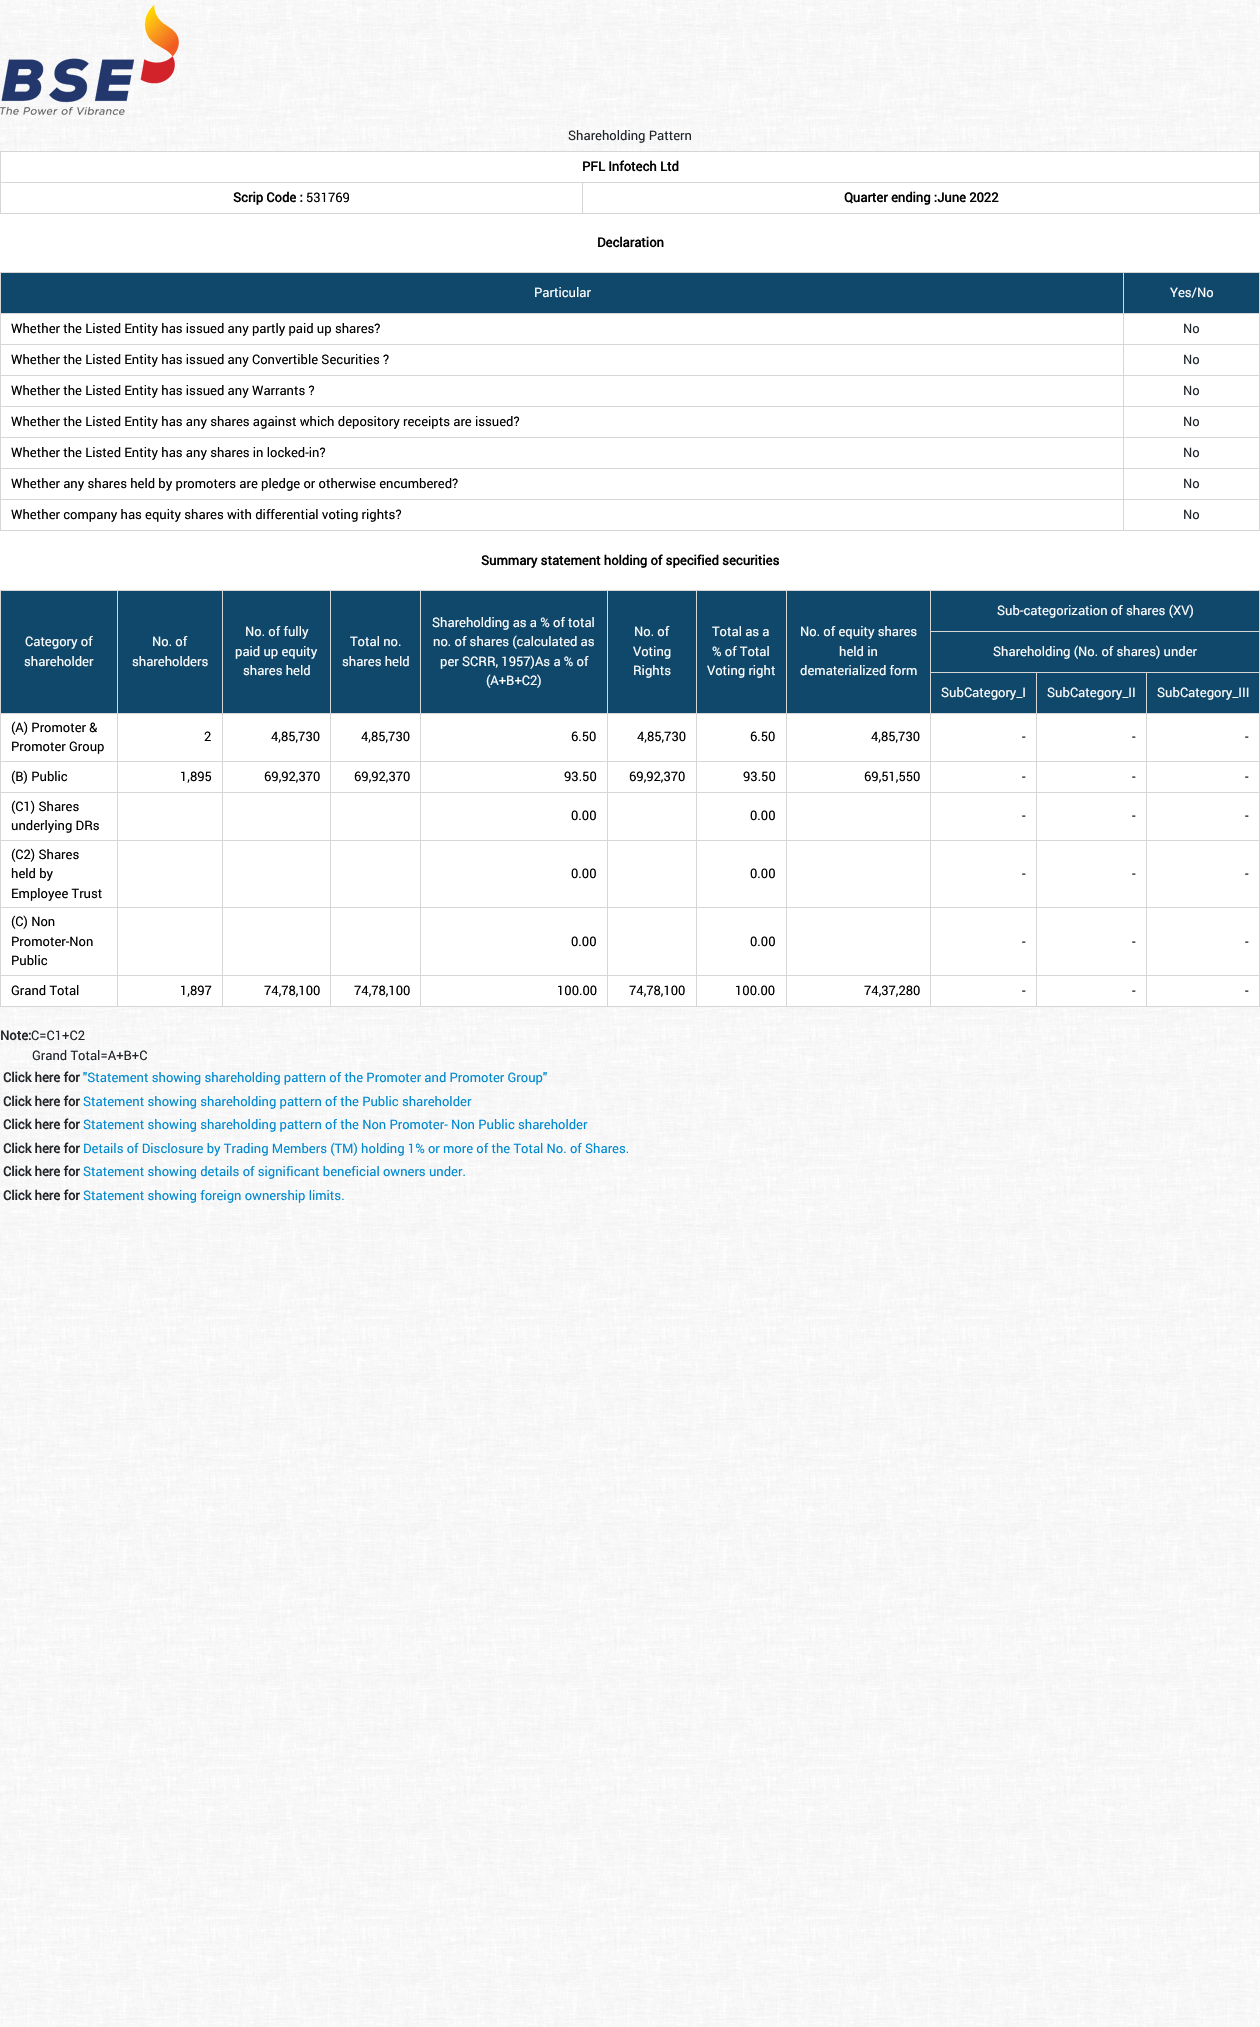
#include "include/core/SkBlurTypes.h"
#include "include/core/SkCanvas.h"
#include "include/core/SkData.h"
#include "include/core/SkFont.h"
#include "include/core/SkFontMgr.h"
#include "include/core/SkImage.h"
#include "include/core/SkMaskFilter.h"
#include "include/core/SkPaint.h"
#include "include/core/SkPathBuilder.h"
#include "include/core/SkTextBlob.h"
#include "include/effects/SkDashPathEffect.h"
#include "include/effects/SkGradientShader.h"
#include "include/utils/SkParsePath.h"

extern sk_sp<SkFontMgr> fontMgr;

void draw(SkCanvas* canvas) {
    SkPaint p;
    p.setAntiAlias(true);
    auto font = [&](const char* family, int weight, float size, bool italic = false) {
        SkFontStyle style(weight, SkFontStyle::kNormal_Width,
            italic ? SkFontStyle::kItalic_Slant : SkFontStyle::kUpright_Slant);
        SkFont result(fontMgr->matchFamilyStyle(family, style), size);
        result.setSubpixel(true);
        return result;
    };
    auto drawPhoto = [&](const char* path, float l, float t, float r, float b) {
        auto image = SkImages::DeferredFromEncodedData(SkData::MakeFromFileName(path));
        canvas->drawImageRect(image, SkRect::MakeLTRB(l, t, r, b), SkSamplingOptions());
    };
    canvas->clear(0xFFFFFFFF);
    drawPhoto("media/1.png", 0, 0, 1260, 2027);
    drawPhoto("media/2.png", 0, 5, 179, 115);
    auto font1 = font("Roboto", 400, 13);
    p.setColor(0xFF212529);
    canvas->drawString("Shareholding Pattern", 568, 140, font1, p);
    p.setColor(0xFFD6D6D6);
    canvas->drawRect(SkRect::MakeLTRB(0, 151, 1260, 214), p);
    p.setColor(0xFFFFFFFF);
    canvas->drawRect(SkRect::MakeLTRB(1, 152, 1259, 182), p);
    auto font2 = font("Roboto", 700, 13);
    p.setColor(0xFF000000);
    canvas->drawString("PFL Infotech Ltd", 582, 171, font2, p);
    p.setColor(0xFFFFFFFF);
    canvas->drawRect(SkRect::MakeLTRB(1, 183, 582, 213), p);
    p.setColor(0xFF000000);
    canvas->drawString("Scrip Code :", 233, 202, font2, p);
    canvas->drawString("531769", 306, 202, font1, p);
    p.setColor(0xFFFFFFFF);
    canvas->drawRect(SkRect::MakeLTRB(583, 183, 1259, 213), p);
    p.setColor(0xFF000000);
    canvas->drawString("Quarter ending :June 2022", 844, 202, font2, p);
    p.setColor(0xFFFFFFFF);
    canvas->drawRect(SkRect::MakeLTRB(0, 214, 1260, 272), p);
    p.setColor(0xFF000000);
    canvas->drawString("Declaration", 597, 247, font2, p);
    p.setColor(0xFFD6D6D6);
    canvas->drawRect(SkRect::MakeLTRB(0, 272, 1260, 531), p);
    p.setColor(0xFF10486B);
    canvas->drawRect(SkRect::MakeLTRB(1, 273, 1123, 313), p);
    p.setColor(0xFFFFFFFF);
    canvas->drawString("Particular", 534, 297, font1, p);
    p.setColor(0xFF10486B);
    canvas->drawRect(SkRect::MakeLTRB(1124, 273, 1259, 313), p);
    p.setColor(0xFFFFFFFF);
    canvas->drawString("Yes/No", 1170, 297, font1, p);
    canvas->drawRect(SkRect::MakeLTRB(1, 314, 1123, 344), p);
    p.setColor(0xFF000000);
    canvas->drawString("Whether the Listed Entity has issued any partly paid up shares?", 11, 333, font1, p);
    p.setColor(0xFFFFFFFF);
    canvas->drawRect(SkRect::MakeLTRB(1124, 314, 1259, 344), p);
    p.setColor(0xFF212529);
    canvas->drawString("No", 1183, 333, font1, p);
    p.setColor(0xFFFFFFFF);
    canvas->drawRect(SkRect::MakeLTRB(1, 345, 1123, 375), p);
    p.setColor(0xFF000000);
    canvas->drawString("Whether the Listed Entity has issued any Convertible Securities ?", 11, 364, font1, p);
    p.setColor(0xFFFFFFFF);
    canvas->drawRect(SkRect::MakeLTRB(1124, 345, 1259, 375), p);
    p.setColor(0xFF212529);
    canvas->drawString("No", 1183, 364, font1, p);
    p.setColor(0xFFFFFFFF);
    canvas->drawRect(SkRect::MakeLTRB(1, 376, 1123, 406), p);
    p.setColor(0xFF000000);
    canvas->drawString("Whether the Listed Entity has issued any Warrants ?", 11, 395, font1, p);
    p.setColor(0xFFFFFFFF);
    canvas->drawRect(SkRect::MakeLTRB(1124, 376, 1259, 406), p);
    p.setColor(0xFF212529);
    canvas->drawString("No", 1183, 395, font1, p);
    p.setColor(0xFFFFFFFF);
    canvas->drawRect(SkRect::MakeLTRB(1, 407, 1123, 437), p);
    p.setColor(0xFF000000);
    canvas->drawString("Whether the Listed Entity has any shares against which depository receipts are issued?", 11, 426, font1, p);
    p.setColor(0xFFFFFFFF);
    canvas->drawRect(SkRect::MakeLTRB(1124, 407, 1259, 437), p);
    p.setColor(0xFF212529);
    canvas->drawString("No", 1183, 426, font1, p);
    p.setColor(0xFFFFFFFF);
    canvas->drawRect(SkRect::MakeLTRB(1, 438, 1123, 468), p);
    p.setColor(0xFF000000);
    canvas->drawString("Whether the Listed Entity has any shares in locked-in?", 11, 457, font1, p);
    p.setColor(0xFFFFFFFF);
    canvas->drawRect(SkRect::MakeLTRB(1124, 438, 1259, 468), p);
    p.setColor(0xFF212529);
    canvas->drawString("No", 1183, 457, font1, p);
    p.setColor(0xFFFFFFFF);
    canvas->drawRect(SkRect::MakeLTRB(1, 469, 1123, 499), p);
    p.setColor(0xFF000000);
    canvas->drawString("Whether any shares held by promoters are pledge or otherwise encumbered?", 11, 488, font1, p);
    p.setColor(0xFFFFFFFF);
    canvas->drawRect(SkRect::MakeLTRB(1124, 469, 1259, 499), p);
    p.setColor(0xFF212529);
    canvas->drawString("No", 1183, 488, font1, p);
    p.setColor(0xFFFFFFFF);
    canvas->drawRect(SkRect::MakeLTRB(1, 500, 1123, 530), p);
    p.setColor(0xFF000000);
    canvas->drawString("Whether company has equity shares with differential voting rights?", 11, 519, font1, p);
    p.setColor(0xFFFFFFFF);
    canvas->drawRect(SkRect::MakeLTRB(1124, 500, 1259, 530), p);
    p.setColor(0xFF212529);
    canvas->drawString("No", 1183, 519, font1, p);
    p.setColor(0xFFFFFFFF);
    canvas->drawRect(SkRect::MakeLTRB(0, 531, 1260, 590), p);
    p.setColor(0xFF000000);
    canvas->drawString("Summary statement holding of specified securities", 481, 565, font2, p);
    p.setColor(0xFFD6D6D6);
    canvas->drawRect(SkRect::MakeLTRB(0, 590, 1260, 1007), p);
    p.setColor(0xFF10486B);
    canvas->drawRect(SkRect::MakeLTRB(931, 591, 1259, 631), p);
    p.setColor(0xFFFFFFFF);
    canvas->drawString("Sub-categorization of shares (XV)", 997, 615, font1, p);
    p.setColor(0xFF10486B);
    canvas->drawRect(SkRect::MakeLTRB(1, 591, 117, 713), p);
    p.setColor(0xFFFFFFFF);
    canvas->drawString("Category of", 25, 646, font1, p);
    canvas->drawString("shareholder", 24, 666, font1, p);
    p.setColor(0xFF10486B);
    canvas->drawRect(SkRect::MakeLTRB(118, 591, 222, 713), p);
    p.setColor(0xFFFFFFFF);
    canvas->drawString("No. of", 152, 646, font1, p);
    canvas->drawString("shareholders", 132, 666, font1, p);
    p.setColor(0xFF10486B);
    canvas->drawRect(SkRect::MakeLTRB(223, 591, 330, 713), p);
    p.setColor(0xFFFFFFFF);
    {
        const struct { const char* s; float x, y; } items[] = {
            {"No. of fully", 245, 636},
            {"paid up equity", 235, 656},
            {"shares held", 243, 675},
        };
        for (auto [s, x, y] : items) {
            canvas->drawString(s, x, y, font1, p);
        }
    }
    p.setColor(0xFF10486B);
    canvas->drawRect(SkRect::MakeLTRB(331, 591, 420, 713), p);
    p.setColor(0xFFFFFFFF);
    canvas->drawString("Total no.", 350, 646, font1, p);
    canvas->drawString("shares held", 342, 666, font1, p);
    p.setColor(0xFF10486B);
    canvas->drawRect(SkRect::MakeLTRB(421, 591, 607, 713), p);
    p.setColor(0xFFFFFFFF);
    {
        const struct { const char* s; float x, y; } items[] = {
            {"Shareholding as a % of total", 432, 627},
            {"no. of shares (calculated as", 433, 646},
            {"per SCRR, 1957)As a % of", 440, 666},
            {"(A+B+C2)", 486, 685},
        };
        for (auto [s, x, y] : items) {
            canvas->drawString(s, x, y, font1, p);
        }
    }
    p.setColor(0xFF10486B);
    canvas->drawRect(SkRect::MakeLTRB(608, 591, 696, 713), p);
    p.setColor(0xFFFFFFFF);
    {
        const struct { const char* s; float x, y; } items[] = {
            {"No. of", 634, 636},
            {"Voting", 633, 656},
            {"Rights", 633, 675},
        };
        for (auto [s, x, y] : items) {
            canvas->drawString(s, x, y, font1, p);
        }
    }
    p.setColor(0xFF10486B);
    canvas->drawRect(SkRect::MakeLTRB(697, 591, 786, 713), p);
    p.setColor(0xFFFFFFFF);
    {
        const struct { const char* s; float x, y; } items[] = {
            {"Total as a", 712, 636},
            {"% of Total", 712, 656},
            {"Voting right", 707, 675},
        };
        for (auto [s, x, y] : items) {
            canvas->drawString(s, x, y, font1, p);
        }
    }
    p.setColor(0xFF10486B);
    canvas->drawRect(SkRect::MakeLTRB(787, 591, 930, 713), p);
    p.setColor(0xFFFFFFFF);
    {
        const struct { const char* s; float x, y; } items[] = {
            {"No. of equity shares", 800, 636},
            {"held in", 839, 656},
            {"dematerialized form", 800, 675},
        };
        for (auto [s, x, y] : items) {
            canvas->drawString(s, x, y, font1, p);
        }
    }
    p.setColor(0xFF10486B);
    canvas->drawRect(SkRect::MakeLTRB(931, 632, 1259, 672), p);
    p.setColor(0xFFFFFFFF);
    canvas->drawString("Shareholding (No. of shares) under", 993, 656, font1, p);
    p.setColor(0xFF10486B);
    canvas->drawRect(SkRect::MakeLTRB(931, 673, 1036, 713), p);
    p.setColor(0xFFFFFFFF);
    canvas->drawString("SubCategory_I", 941, 697, font1, p);
    p.setColor(0xFF10486B);
    canvas->drawRect(SkRect::MakeLTRB(1037, 673, 1146, 713), p);
    p.setColor(0xFFFFFFFF);
    canvas->drawString("SubCategory_II", 1047, 697, font1, p);
    p.setColor(0xFF10486B);
    canvas->drawRect(SkRect::MakeLTRB(1147, 673, 1259, 713), p);
    p.setColor(0xFFFFFFFF);
    canvas->drawString("SubCategory_III", 1157, 697, font1, p);
    canvas->drawRect(SkRect::MakeLTRB(1, 714, 117, 761), p);
    p.setColor(0xFF000000);
    canvas->drawString("(A) Promoter &", 11, 732, font1, p);
    canvas->drawString("Promoter Group", 11, 751, font1, p);
    p.setColor(0xFFFFFFFF);
    canvas->drawRect(SkRect::MakeLTRB(118, 714, 222, 761), p);
    p.setColor(0xFF000000);
    canvas->drawString("2", 204, 741, font1, p);
    p.setColor(0xFFFFFFFF);
    canvas->drawRect(SkRect::MakeLTRB(223, 714, 330, 761), p);
    p.setColor(0xFF000000);
    canvas->drawString("4,85,730", 271, 741, font1, p);
    p.setColor(0xFFFFFFFF);
    canvas->drawRect(SkRect::MakeLTRB(331, 714, 420, 761), p);
    p.setColor(0xFF000000);
    canvas->drawString("4,85,730", 361, 741, font1, p);
    p.setColor(0xFFFFFFFF);
    canvas->drawRect(SkRect::MakeLTRB(421, 714, 607, 761), p);
    p.setColor(0xFF000000);
    canvas->drawString("6.50", 571, 741, font1, p);
    p.setColor(0xFFFFFFFF);
    canvas->drawRect(SkRect::MakeLTRB(608, 714, 696, 761), p);
    p.setColor(0xFF000000);
    canvas->drawString("4,85,730", 637, 741, font1, p);
    p.setColor(0xFFFFFFFF);
    canvas->drawRect(SkRect::MakeLTRB(697, 714, 786, 761), p);
    p.setColor(0xFF000000);
    canvas->drawString("6.50", 750, 741, font1, p);
    p.setColor(0xFFFFFFFF);
    canvas->drawRect(SkRect::MakeLTRB(787, 714, 930, 761), p);
    p.setColor(0xFF000000);
    canvas->drawString("4,85,730", 871, 741, font1, p);
    p.setColor(0xFFFFFFFF);
    canvas->drawRect(SkRect::MakeLTRB(931, 714, 1036, 761), p);
    p.setColor(0xFF000000);
    canvas->drawString("-", 1022, 741, font1, p);
    p.setColor(0xFFFFFFFF);
    canvas->drawRect(SkRect::MakeLTRB(1037, 714, 1146, 761), p);
    p.setColor(0xFF000000);
    canvas->drawString("-", 1132, 741, font1, p);
    p.setColor(0xFFFFFFFF);
    canvas->drawRect(SkRect::MakeLTRB(1147, 714, 1259, 761), p);
    p.setColor(0xFF000000);
    canvas->drawString("-", 1245, 741, font1, p);
    p.setColor(0xFFFFFFFF);
    canvas->drawRect(SkRect::MakeLTRB(1, 762, 117, 792), p);
    p.setColor(0xFF000000);
    canvas->drawString("(B) Public", 11, 781, font1, p);
    p.setColor(0xFFFFFFFF);
    canvas->drawRect(SkRect::MakeLTRB(118, 762, 222, 792), p);
    p.setColor(0xFF000000);
    canvas->drawString("1,895", 180, 781, font1, p);
    p.setColor(0xFFFFFFFF);
    canvas->drawRect(SkRect::MakeLTRB(223, 762, 330, 792), p);
    p.setColor(0xFF000000);
    canvas->drawString("69,92,370", 264, 781, font1, p);
    p.setColor(0xFFFFFFFF);
    canvas->drawRect(SkRect::MakeLTRB(331, 762, 420, 792), p);
    p.setColor(0xFF000000);
    canvas->drawString("69,92,370", 354, 781, font1, p);
    p.setColor(0xFFFFFFFF);
    canvas->drawRect(SkRect::MakeLTRB(421, 762, 607, 792), p);
    p.setColor(0xFF000000);
    canvas->drawString("93.50", 564, 781, font1, p);
    p.setColor(0xFFFFFFFF);
    canvas->drawRect(SkRect::MakeLTRB(608, 762, 696, 792), p);
    p.setColor(0xFF000000);
    canvas->drawString("69,92,370", 629, 781, font1, p);
    p.setColor(0xFFFFFFFF);
    canvas->drawRect(SkRect::MakeLTRB(697, 762, 786, 792), p);
    p.setColor(0xFF000000);
    canvas->drawString("93.50", 743, 781, font1, p);
    p.setColor(0xFFFFFFFF);
    canvas->drawRect(SkRect::MakeLTRB(787, 762, 930, 792), p);
    p.setColor(0xFF000000);
    canvas->drawString("69,51,550", 864, 781, font1, p);
    p.setColor(0xFFFFFFFF);
    canvas->drawRect(SkRect::MakeLTRB(931, 762, 1036, 792), p);
    p.setColor(0xFF000000);
    canvas->drawString("-", 1022, 781, font1, p);
    p.setColor(0xFFFFFFFF);
    canvas->drawRect(SkRect::MakeLTRB(1037, 762, 1146, 792), p);
    p.setColor(0xFF000000);
    canvas->drawString("-", 1132, 781, font1, p);
    p.setColor(0xFFFFFFFF);
    canvas->drawRect(SkRect::MakeLTRB(1147, 762, 1259, 792), p);
    p.setColor(0xFF000000);
    canvas->drawString("-", 1245, 781, font1, p);
    p.setColor(0xFFFFFFFF);
    canvas->drawRect(SkRect::MakeLTRB(1, 793, 117, 840), p);
    p.setColor(0xFF000000);
    canvas->drawString("(C1) Shares", 11, 811, font1, p);
    canvas->drawString("underlying DRs", 11, 830, font1, p);
    {
        const struct { float l, t, r, b; SkColor color; } items[] = {
            {118, 793, 222, 840, 0xFFFFFFFF},
            {223, 793, 330, 840, 0xFFFFFFFF},
            {331, 793, 420, 840, 0xFFFFFFFF},
            {421, 793, 607, 840, 0xFFFFFFFF},
        };
        for (auto [l, t, r, b, color] : items) {
            p.setColor(color);
            canvas->drawRect(SkRect::MakeLTRB(l, t, r, b), p);
        }
    }
    p.setColor(0xFF000000);
    canvas->drawString("0.00", 571, 820, font1, p);
    p.setColor(0xFFFFFFFF);
    canvas->drawRect(SkRect::MakeLTRB(608, 793, 696, 840), p);
    canvas->drawRect(SkRect::MakeLTRB(697, 793, 786, 840), p);
    p.setColor(0xFF000000);
    canvas->drawString("0.00", 750, 820, font1, p);
    p.setColor(0xFFFFFFFF);
    canvas->drawRect(SkRect::MakeLTRB(787, 793, 930, 840), p);
    canvas->drawRect(SkRect::MakeLTRB(931, 793, 1036, 840), p);
    p.setColor(0xFF000000);
    canvas->drawString("-", 1022, 820, font1, p);
    p.setColor(0xFFFFFFFF);
    canvas->drawRect(SkRect::MakeLTRB(1037, 793, 1146, 840), p);
    p.setColor(0xFF000000);
    canvas->drawString("-", 1132, 820, font1, p);
    p.setColor(0xFFFFFFFF);
    canvas->drawRect(SkRect::MakeLTRB(1147, 793, 1259, 840), p);
    p.setColor(0xFF000000);
    canvas->drawString("-", 1245, 820, font1, p);
    p.setColor(0xFFFFFFFF);
    canvas->drawRect(SkRect::MakeLTRB(1, 841, 117, 907), p);
    p.setColor(0xFF000000);
    {
        const struct { const char* s; float x, y; } items[] = {
            {"(C2) Shares", 11, 859},
            {"held by", 11, 878},
            {"Employee Trust", 11, 898},
        };
        for (auto [s, x, y] : items) {
            canvas->drawString(s, x, y, font1, p);
        }
    }
    {
        const struct { float l, t, r, b; SkColor color; } items[] = {
            {118, 841, 222, 907, 0xFFFFFFFF},
            {223, 841, 330, 907, 0xFFFFFFFF},
            {331, 841, 420, 907, 0xFFFFFFFF},
            {421, 841, 607, 907, 0xFFFFFFFF},
        };
        for (auto [l, t, r, b, color] : items) {
            p.setColor(color);
            canvas->drawRect(SkRect::MakeLTRB(l, t, r, b), p);
        }
    }
    p.setColor(0xFF000000);
    canvas->drawString("0.00", 571, 878, font1, p);
    p.setColor(0xFFFFFFFF);
    canvas->drawRect(SkRect::MakeLTRB(608, 841, 696, 907), p);
    canvas->drawRect(SkRect::MakeLTRB(697, 841, 786, 907), p);
    p.setColor(0xFF000000);
    canvas->drawString("0.00", 750, 878, font1, p);
    p.setColor(0xFFFFFFFF);
    canvas->drawRect(SkRect::MakeLTRB(787, 841, 930, 907), p);
    canvas->drawRect(SkRect::MakeLTRB(931, 841, 1036, 907), p);
    p.setColor(0xFF000000);
    canvas->drawString("-", 1022, 878, font1, p);
    p.setColor(0xFFFFFFFF);
    canvas->drawRect(SkRect::MakeLTRB(1037, 841, 1146, 907), p);
    p.setColor(0xFF000000);
    canvas->drawString("-", 1132, 878, font1, p);
    p.setColor(0xFFFFFFFF);
    canvas->drawRect(SkRect::MakeLTRB(1147, 841, 1259, 907), p);
    p.setColor(0xFF000000);
    canvas->drawString("-", 1245, 878, font1, p);
    p.setColor(0xFFFFFFFF);
    canvas->drawRect(SkRect::MakeLTRB(1, 908, 117, 975), p);
    p.setColor(0xFF000000);
    {
        const struct { const char* s; float x, y; } items[] = {
            {"(C) Non", 11, 926},
            {"Promoter-Non", 11, 946},
            {"Public", 11, 965},
        };
        for (auto [s, x, y] : items) {
            canvas->drawString(s, x, y, font1, p);
        }
    }
    {
        const struct { float l, t, r, b; SkColor color; } items[] = {
            {118, 908, 222, 975, 0xFFFFFFFF},
            {223, 908, 330, 975, 0xFFFFFFFF},
            {331, 908, 420, 975, 0xFFFFFFFF},
            {421, 908, 607, 975, 0xFFFFFFFF},
        };
        for (auto [l, t, r, b, color] : items) {
            p.setColor(color);
            canvas->drawRect(SkRect::MakeLTRB(l, t, r, b), p);
        }
    }
    p.setColor(0xFF000000);
    canvas->drawString("0.00", 571, 946, font1, p);
    p.setColor(0xFFFFFFFF);
    canvas->drawRect(SkRect::MakeLTRB(608, 908, 696, 975), p);
    canvas->drawRect(SkRect::MakeLTRB(697, 908, 786, 975), p);
    p.setColor(0xFF000000);
    canvas->drawString("0.00", 750, 946, font1, p);
    p.setColor(0xFFFFFFFF);
    canvas->drawRect(SkRect::MakeLTRB(787, 908, 930, 975), p);
    canvas->drawRect(SkRect::MakeLTRB(931, 908, 1036, 975), p);
    p.setColor(0xFF000000);
    canvas->drawString("-", 1022, 946, font1, p);
    p.setColor(0xFFFFFFFF);
    canvas->drawRect(SkRect::MakeLTRB(1037, 908, 1146, 975), p);
    p.setColor(0xFF000000);
    canvas->drawString("-", 1132, 946, font1, p);
    p.setColor(0xFFFFFFFF);
    canvas->drawRect(SkRect::MakeLTRB(1147, 908, 1259, 975), p);
    p.setColor(0xFF000000);
    canvas->drawString("-", 1245, 946, font1, p);
    p.setColor(0xFFFFFFFF);
    canvas->drawRect(SkRect::MakeLTRB(1, 976, 117, 1006), p);
    p.setColor(0xFF000000);
    canvas->drawString("Grand Total", 11, 995, font1, p);
    p.setColor(0xFFFFFFFF);
    canvas->drawRect(SkRect::MakeLTRB(118, 976, 222, 1006), p);
    p.setColor(0xFF000000);
    canvas->drawString("1,897", 180, 995, font1, p);
    p.setColor(0xFFFFFFFF);
    canvas->drawRect(SkRect::MakeLTRB(223, 976, 330, 1006), p);
    p.setColor(0xFF000000);
    canvas->drawString("74,78,100", 264, 995, font1, p);
    p.setColor(0xFFFFFFFF);
    canvas->drawRect(SkRect::MakeLTRB(331, 976, 420, 1006), p);
    p.setColor(0xFF000000);
    canvas->drawString("74,78,100", 354, 995, font1, p);
    p.setColor(0xFFFFFFFF);
    canvas->drawRect(SkRect::MakeLTRB(421, 976, 607, 1006), p);
    p.setColor(0xFF000000);
    canvas->drawString("100.00", 557, 995, font1, p);
    p.setColor(0xFFFFFFFF);
    canvas->drawRect(SkRect::MakeLTRB(608, 976, 696, 1006), p);
    p.setColor(0xFF000000);
    canvas->drawString("74,78,100", 629, 995, font1, p);
    p.setColor(0xFFFFFFFF);
    canvas->drawRect(SkRect::MakeLTRB(697, 976, 786, 1006), p);
    p.setColor(0xFF000000);
    canvas->drawString("100.00", 735, 995, font1, p);
    p.setColor(0xFFFFFFFF);
    canvas->drawRect(SkRect::MakeLTRB(787, 976, 930, 1006), p);
    p.setColor(0xFF000000);
    canvas->drawString("74,37,280", 864, 995, font1, p);
    p.setColor(0xFFFFFFFF);
    canvas->drawRect(SkRect::MakeLTRB(931, 976, 1036, 1006), p);
    p.setColor(0xFF000000);
    canvas->drawString("-", 1022, 995, font1, p);
    p.setColor(0xFFFFFFFF);
    canvas->drawRect(SkRect::MakeLTRB(1037, 976, 1146, 1006), p);
    p.setColor(0xFF000000);
    canvas->drawString("-", 1132, 995, font1, p);
    p.setColor(0xFFFFFFFF);
    canvas->drawRect(SkRect::MakeLTRB(1147, 976, 1259, 1006), p);
    p.setColor(0xFF000000);
    canvas->drawString("-", 1245, 995, font1, p);
    p.setColor(0xFF212529);
    canvas->drawString("Note:", 0, 1040, font2, p);
    canvas->drawString("C=C1+C2", 31, 1040, font1, p);
    canvas->drawString("Grand Total=A+B+C", 32, 1060, font1, p);
    canvas->drawString("Click here for", 3, 1082, font2, p);
    p.setColor(0xFF0089D0);
    canvas->drawString("\"Statement showing shareholding pattern of the Promoter and Promoter Group\"", 83, 1082, font1, p);
    p.setColor(0xFF212529);
    canvas->drawString("Click here for", 3, 1106, font2, p);
    p.setColor(0xFF0089D0);
    canvas->drawString("Statement showing shareholding pattern of the Public shareholder", 83, 1106, font1, p);
    p.setColor(0xFF212529);
    canvas->drawString("Click here for", 3, 1129, font2, p);
    p.setColor(0xFF0089D0);
    canvas->drawString("Statement showing shareholding pattern of the Non Promoter- Non Public shareholder", 83, 1129, font1, p);
    p.setColor(0xFF212529);
    canvas->drawString("Click here for", 3, 1153, font2, p);
    p.setColor(0xFF0089D0);
    canvas->drawString("Details of Disclosure by Trading Members (TM) holding 1% or more of the Total No. of Shares.", 83, 1153, font1, p);
    p.setColor(0xFF212529);
    canvas->drawString("Click here for", 3, 1176, font2, p);
    p.setColor(0xFF0089D0);
    canvas->drawString("Statement showing details of significant beneficial owners under.", 83, 1176, font1, p);
    p.setColor(0xFF212529);
    canvas->drawString("Click here for", 3, 1200, font2, p);
    p.setColor(0xFF0089D0);
    canvas->drawString("Statement showing foreign ownership limits.", 83, 1200, font1, p);
}
